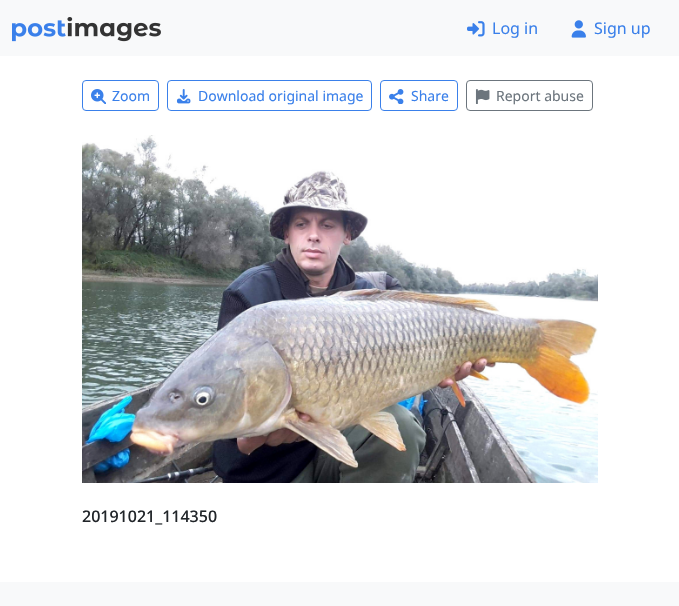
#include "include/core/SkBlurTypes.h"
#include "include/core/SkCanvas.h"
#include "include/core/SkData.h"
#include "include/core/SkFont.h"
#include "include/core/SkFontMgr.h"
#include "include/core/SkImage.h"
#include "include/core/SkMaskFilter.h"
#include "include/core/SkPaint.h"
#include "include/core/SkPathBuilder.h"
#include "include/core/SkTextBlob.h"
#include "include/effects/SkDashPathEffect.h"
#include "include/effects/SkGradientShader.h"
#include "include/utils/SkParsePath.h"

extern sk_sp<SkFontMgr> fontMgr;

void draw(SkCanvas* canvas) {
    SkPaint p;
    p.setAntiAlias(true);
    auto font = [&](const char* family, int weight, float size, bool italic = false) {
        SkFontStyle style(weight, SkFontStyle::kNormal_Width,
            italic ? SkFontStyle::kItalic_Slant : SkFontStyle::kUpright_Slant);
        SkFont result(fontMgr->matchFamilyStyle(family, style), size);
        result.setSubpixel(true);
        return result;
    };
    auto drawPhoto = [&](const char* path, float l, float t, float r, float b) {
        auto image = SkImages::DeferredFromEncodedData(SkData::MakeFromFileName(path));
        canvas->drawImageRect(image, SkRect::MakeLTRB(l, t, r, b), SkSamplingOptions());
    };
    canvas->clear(0xFFFFFFFF);
    p.setColor(0xFFF8F9FA);
    canvas->drawRect(SkRect::MakeLTRB(0, 0, 679, 56), p);
    drawPhoto("media/1.png", 12, 17, 161, 42);
    drawPhoto("media/2.png", 467, 21, 485, 37);
    auto font1 = font("Noto Sans", 400, 16);
    p.setColor(0xFF3A80EA);
    canvas->drawString("Log in", 492, 34, font1, p);
    drawPhoto("media/3.png", 571, 20, 586, 38);
    canvas->drawString("Sign up", 594, 34, font1, p);
    p.setStyle(SkPaint::kStroke_Style);
    p.setStrokeWidth(1);
    canvas->drawRoundRect(SkRect::MakeLTRB(82.5f, 80.5f, 158.5f, 110.5f), 3.5f, 3.5f, p);
    drawPhoto("media/4.png", 91, 89, 106, 104);
    auto font2 = font("Noto Sans", 400, 14);
    p.setStyle(SkPaint::kFill_Style);
    canvas->drawString("Zoom", 112, 101, font2, p);
    p.setStyle(SkPaint::kStroke_Style);
    canvas->drawRoundRect(SkRect::MakeLTRB(167.5f, 80.5f, 371.5f, 110.5f), 3.5f, 3.5f, p);
    drawPhoto("media/5.png", 176, 89, 191, 104);
    p.setStyle(SkPaint::kFill_Style);
    canvas->drawString("Download original image", 198, 101, font2, p);
    p.setStyle(SkPaint::kStroke_Style);
    canvas->drawRoundRect(SkRect::MakeLTRB(380.5f, 80.5f, 457.5f, 110.5f), 3.5f, 3.5f, p);
    drawPhoto("media/6.png", 389, 89, 404, 104);
    p.setStyle(SkPaint::kFill_Style);
    canvas->drawString("Share", 411, 101, font2, p);
    p.setStyle(SkPaint::kStroke_Style);
    p.setColor(0xFF6C757D);
    canvas->drawRoundRect(SkRect::MakeLTRB(466.5f, 80.5f, 592.5f, 110.5f), 3.5f, 3.5f, p);
    drawPhoto("media/7.png", 475, 89, 490, 104);
    p.setStyle(SkPaint::kFill_Style);
    canvas->drawString("Report abuse", 496, 101, font2, p);
    drawPhoto("media/8.png", 82, 135, 598, 483);
    auto font3 = font("Noto Sans", 500, 16);
    p.setColor(0xFF212529);
    canvas->drawString("20191021_114350", 82, 522, font3, p);
    p.setColor(0xFFF8F9FA);
    canvas->drawRect(SkRect::MakeLTRB(0, 582, 679, 606), p);
}
